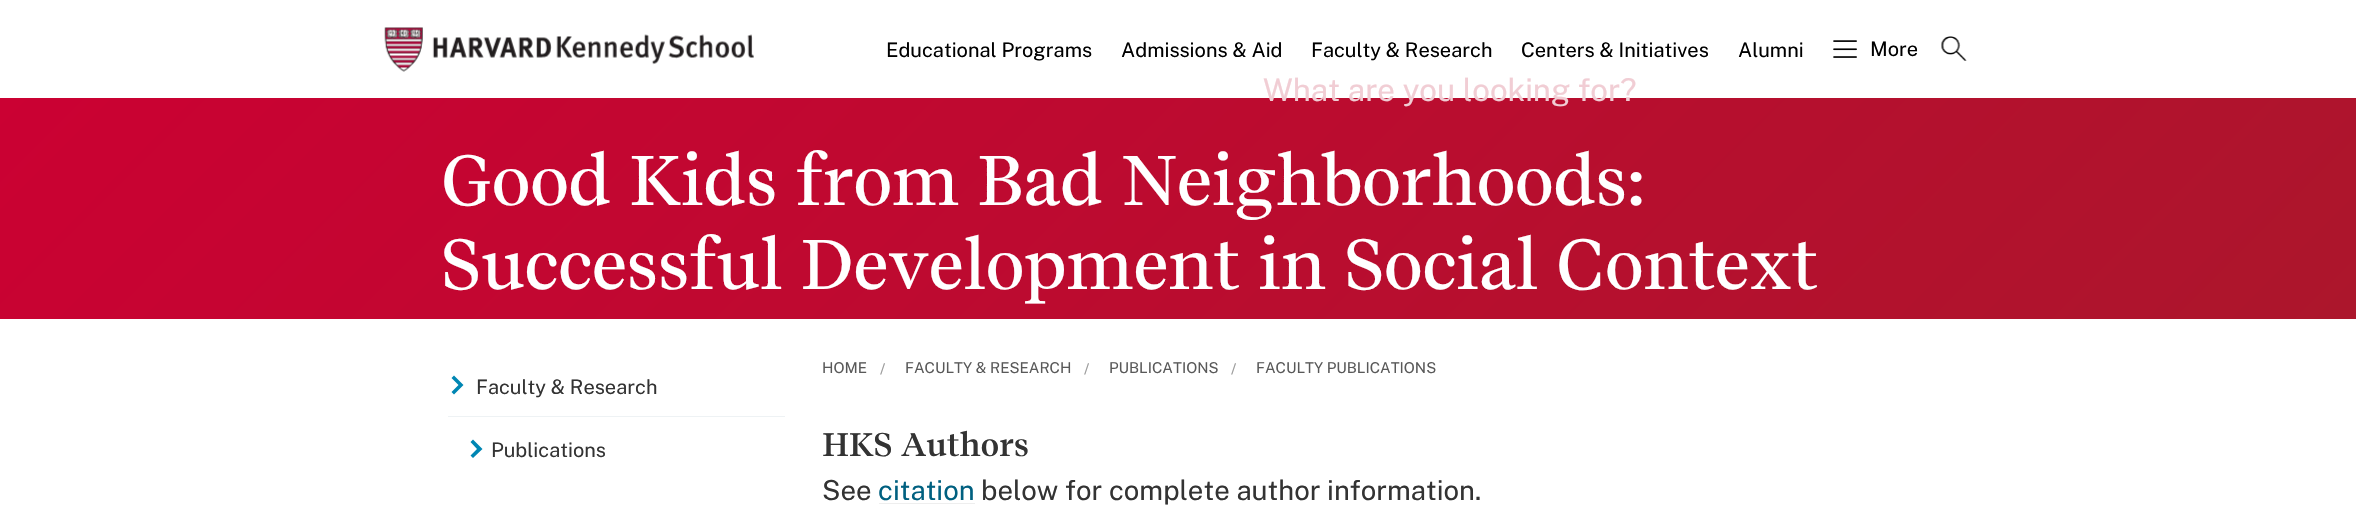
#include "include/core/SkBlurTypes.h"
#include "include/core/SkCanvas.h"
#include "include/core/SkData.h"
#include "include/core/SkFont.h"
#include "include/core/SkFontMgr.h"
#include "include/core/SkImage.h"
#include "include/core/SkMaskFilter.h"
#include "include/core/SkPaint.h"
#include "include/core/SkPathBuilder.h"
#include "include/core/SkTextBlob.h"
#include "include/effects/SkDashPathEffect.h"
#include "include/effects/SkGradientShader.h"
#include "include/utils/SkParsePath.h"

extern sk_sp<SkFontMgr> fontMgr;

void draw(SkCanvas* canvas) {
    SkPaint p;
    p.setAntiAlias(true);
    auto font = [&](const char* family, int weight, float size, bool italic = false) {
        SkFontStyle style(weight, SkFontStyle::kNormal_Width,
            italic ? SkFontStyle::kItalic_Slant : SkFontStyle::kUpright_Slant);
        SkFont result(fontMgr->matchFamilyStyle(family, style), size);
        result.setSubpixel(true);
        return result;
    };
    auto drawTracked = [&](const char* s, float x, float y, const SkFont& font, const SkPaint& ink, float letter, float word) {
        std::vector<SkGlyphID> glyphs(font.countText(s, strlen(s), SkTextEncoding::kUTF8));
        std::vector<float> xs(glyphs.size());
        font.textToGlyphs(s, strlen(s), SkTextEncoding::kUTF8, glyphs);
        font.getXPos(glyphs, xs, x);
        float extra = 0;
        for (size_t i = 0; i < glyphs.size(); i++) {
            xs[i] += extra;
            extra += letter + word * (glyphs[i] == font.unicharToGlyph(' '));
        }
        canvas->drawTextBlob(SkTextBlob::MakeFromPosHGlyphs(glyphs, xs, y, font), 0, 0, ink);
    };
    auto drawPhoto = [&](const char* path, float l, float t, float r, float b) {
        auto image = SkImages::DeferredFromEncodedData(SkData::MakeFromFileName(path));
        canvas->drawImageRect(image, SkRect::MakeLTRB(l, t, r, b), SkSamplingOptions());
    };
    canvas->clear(0xFFFFFFFF);
    {
        const SkColor colors[] = {0xFFCC0033, 0xFFAC162C};
        const float stops[] = {0, 1};
        const SkPoint ends[] = {{509, -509}, {1847, 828}};
        p.setShader(SkGradientShader::MakeLinear(ends, colors, stops, 2, SkTileMode::kClamp));
        p.setAlpha(255);
    }
    canvas->drawRect(SkRect::MakeLTRB(0, 98, 2356, 319), p);
    drawPhoto("media/1.png", 384, 27, 754, 72);
    auto font1 = font("Public Sans", 100, 20);
    p.setShader(nullptr);
    p.setColor(0xFF000000);
    {
        const struct { const char* s; float x, y; } items[] = {
            {"Educational Programs", 886, 57},
            {"Admissions & Aid", 1121, 57},
            {"Faculty & Research", 1311, 57},
            {"Centers & Initiatives", 1521, 57},
            {"Alumni", 1738, 57},
        };
        for (auto [s, x, y] : items) {
            canvas->drawString(s, x, y, font1, p);
        }
    }
    drawPhoto("media/2.png", 1833, 40, 1857, 58);
    canvas->drawString("More", 1870, 56, font1, p);
    drawPhoto("media/3.png", 1941, 36, 1967, 61);
    auto font2 = font("Public Sans", 100, 31.25f);
    p.setColor(0xFFF1CDD4);
    canvas->drawString("What are you looking for?", 1263, 101, font2, p);
    auto font3 = font("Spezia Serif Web", 500, 70);
    p.setColor(0xFFFFFFFF);
    drawTracked("Good Kids from Bad Neighborhoods:", 441, 205, font3, p, -1.25f, 0);
    drawTracked("Successful Development in Social Context", 441, 289, font3, p, -1.25f, 0);
    p.setColor(0xFFEEF2F4);
    canvas->drawRect(SkRect::MakeLTRB(448, 416, 785, 417), p);
    p.setColor(0xFF0086B3);
    canvas->drawPath(SkPathBuilder().moveTo(463.5f, 385).lineTo(454, 375.5f).lineTo(451.5f, 378).lineTo(458.5f, 385).lineTo(451.5f, 392).lineTo(454, 394.5f).close().detach(), p);
    p.setColor(0xFF333333);
    canvas->drawString("Faculty & Research", 476, 394, font1, p);
    p.setColor(0xFF0086B3);
    canvas->drawPath(SkPathBuilder().moveTo(482.5f, 449).lineTo(473, 439.5f).lineTo(470.5f, 442).lineTo(477, 449).lineTo(470.5f, 455.5f).lineTo(473, 458).close().detach(), p);
    p.setColor(0xFF333333);
    canvas->drawString("Publications", 491, 457, font1, p);
    auto font4 = font("Public Sans", 100, 15);
    p.setColor(0xFF595959);
    canvas->drawString("HOME", 822, 373, font4, p);
    p.setColor(0xFF999999);
    canvas->drawString("/", 880, 374, font4, p);
    p.setColor(0xFF595959);
    canvas->drawString("FACULTY & RESEARCH", 905, 373, font4, p);
    p.setColor(0xFF999999);
    canvas->drawString("/", 1084, 374, font4, p);
    p.setColor(0xFF595959);
    canvas->drawString("PUBLICATIONS", 1109, 373, font4, p);
    p.setColor(0xFF999999);
    canvas->drawString("/", 1231, 374, font4, p);
    p.setColor(0xFF595959);
    canvas->drawString("FACULTY PUBLICATIONS", 1256, 373, font4, p);
    auto font5 = font("Spezia Serif Web", 600, 32.5f);
    p.setColor(0xFF333333);
    drawTracked("HKS Authors", 822, 456, font5, p, -0.4f, 0);
    auto font6 = font("Public Sans", 100, 27.5f);
    canvas->drawString("See", 822, 500, font6, p);
    p.setColor(0xFF006080);
    canvas->drawString("citation", 878, 500, font6, p);
    p.setColor(0xFFEEEEEE);
    canvas->drawRect(SkRect::MakeLTRB(879, 503, 975, 504), p);
    p.setColor(0xFF333333);
    canvas->drawString("below for complete author information.", 981, 500, font6, p);
}
